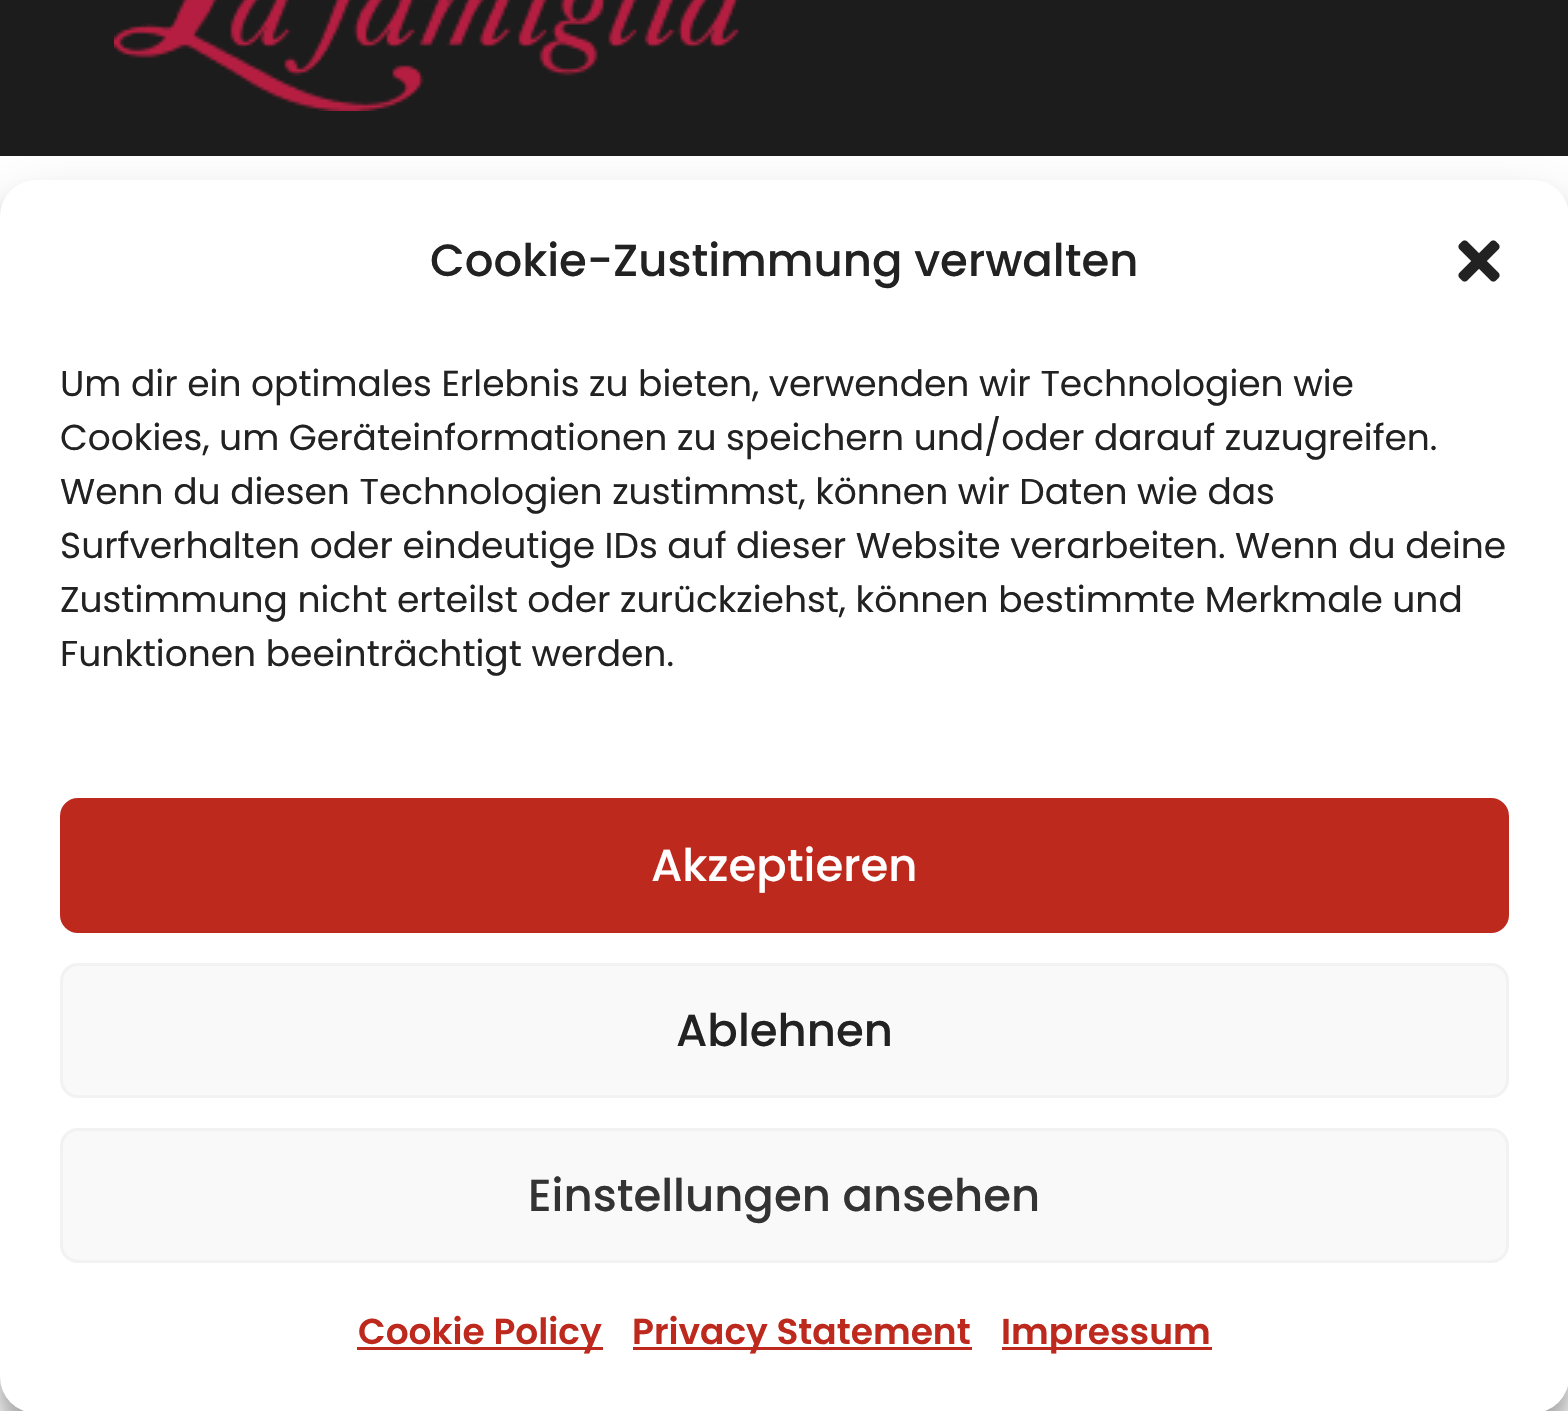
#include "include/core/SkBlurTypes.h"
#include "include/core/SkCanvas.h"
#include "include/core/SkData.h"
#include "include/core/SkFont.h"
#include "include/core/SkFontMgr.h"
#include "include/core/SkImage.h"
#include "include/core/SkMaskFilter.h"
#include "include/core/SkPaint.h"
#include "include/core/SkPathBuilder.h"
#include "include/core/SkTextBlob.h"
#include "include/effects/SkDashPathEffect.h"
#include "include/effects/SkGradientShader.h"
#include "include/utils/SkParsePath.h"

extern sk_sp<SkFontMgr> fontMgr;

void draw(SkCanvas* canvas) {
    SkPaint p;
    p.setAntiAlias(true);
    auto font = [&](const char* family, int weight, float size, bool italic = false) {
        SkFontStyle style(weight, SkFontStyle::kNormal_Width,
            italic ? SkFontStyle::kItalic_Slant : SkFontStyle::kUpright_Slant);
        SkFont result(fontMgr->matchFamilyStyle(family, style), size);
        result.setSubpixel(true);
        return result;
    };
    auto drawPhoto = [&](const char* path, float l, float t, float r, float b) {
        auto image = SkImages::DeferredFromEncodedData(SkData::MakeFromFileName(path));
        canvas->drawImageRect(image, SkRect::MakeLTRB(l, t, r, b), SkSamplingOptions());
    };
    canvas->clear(0xFFFFFFFF);
    p.setColor(0xFF1C1C1C);
    canvas->drawRect(SkRect::MakeLTRB(0, 0, 1568, 156), p);
    drawPhoto("media/1.png", 114, 0, 739, 111);
    p.setColor(0x3B000000);
    p.setMaskFilter(SkMaskFilter::MakeBlur(kNormal_SkBlurStyle, 9));
    canvas->drawRoundRect(SkRect::MakeLTRB(0, 198, 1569, 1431), 36, 36, p);
    p.setMaskFilter(nullptr);
    p.setColor(0x30000000);
    p.setMaskFilter(SkMaskFilter::MakeBlur(kNormal_SkBlurStyle, 30));
    canvas->drawRoundRect(SkRect::MakeLTRB(0, 210, 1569, 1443), 36, 36, p);
    p.setMaskFilter(nullptr);
    p.setColor(0xFFFFFFFF);
    canvas->drawRoundRect(SkRect::MakeLTRB(0, 180, 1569, 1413), 36, 36, p);
    auto font1 = font("Poppins", 500, 45);
    p.setColor(0xFF222222);
    canvas->drawString("Cookie-Zustimmung verwalten", 430, 276, font1, p);
    drawPhoto("media/2.png", 1458, 240, 1500, 282);
    auto font2 = font("Poppins", 400, 36);
    {
        const struct { const char* s; float x, y; } items[] = {
            {"Um dir ein optimales Erlebnis zu bieten, verwenden wir Technologien wie", 60, 396},
            {"Cookies, um Geräteinformationen zu speichern und/oder darauf zuzugreifen.", 60, 450},
            {"Wenn du diesen Technologien zustimmst, können wir Daten wie das", 60, 504},
            {"Surfverhalten oder eindeutige IDs auf dieser Website verarbeiten. Wenn du deine", 60, 558},
            {"Zustimmung nicht erteilst oder zurückziehst, können bestimmte Merkmale und", 60, 612},
            {"Funktionen beeinträchtigt werden.", 60, 666},
        };
        for (auto [s, x, y] : items) {
            canvas->drawString(s, x, y, font2, p);
        }
    }
    p.setColor(0xFFBE291E);
    canvas->drawRoundRect(SkRect::MakeLTRB(61.5f, 799.5f, 1507.5f, 931.5f), 16.5f, 16.5f, p);
    p.setStyle(SkPaint::kStroke_Style);
    p.setStrokeWidth(3);
    canvas->drawRoundRect(SkRect::MakeLTRB(61.5f, 799.5f, 1507.5f, 931.5f), 16.5f, 16.5f, p);
    p.setStyle(SkPaint::kFill_Style);
    p.setColor(0xFFFFFFFF);
    canvas->drawString("Akzeptieren", 651, 881, font1, p);
    p.setColor(0xFFF9F9F9);
    canvas->drawRoundRect(SkRect::MakeLTRB(61.5f, 964.5f, 1507.5f, 1096.5f), 16.5f, 16.5f, p);
    p.setStyle(SkPaint::kStroke_Style);
    p.setColor(0xFFF2F2F2);
    canvas->drawRoundRect(SkRect::MakeLTRB(61.5f, 964.5f, 1507.5f, 1096.5f), 16.5f, 16.5f, p);
    p.setStyle(SkPaint::kFill_Style);
    p.setColor(0xFF222222);
    canvas->drawString("Ablehnen", 676, 1046, font1, p);
    p.setColor(0xFFF9F9F9);
    canvas->drawRoundRect(SkRect::MakeLTRB(61.5f, 1129.5f, 1507.5f, 1261.5f), 16.5f, 16.5f, p);
    p.setStyle(SkPaint::kStroke_Style);
    p.setColor(0xFFF2F2F2);
    canvas->drawRoundRect(SkRect::MakeLTRB(61.5f, 1129.5f, 1507.5f, 1261.5f), 16.5f, 16.5f, p);
    p.setStyle(SkPaint::kFill_Style);
    p.setColor(0xFF333333);
    canvas->drawString("Einstellungen ansehen", 528, 1211, font1, p);
    p.setColor(0xFFBE291E);
    canvas->drawRect(SkRect::MakeLTRB(357, 1347, 603, 1350), p);
    auto font3 = font("Poppins", 600, 36);
    canvas->drawString("Cookie Policy", 358, 1344, font3, p);
    canvas->drawRect(SkRect::MakeLTRB(633, 1347, 972, 1350), p);
    canvas->drawString("Privacy Statement", 632, 1344, font3, p);
    canvas->drawRect(SkRect::MakeLTRB(1002, 1347, 1212, 1350), p);
    canvas->drawString("Impressum", 1001, 1344, font3, p);
}
